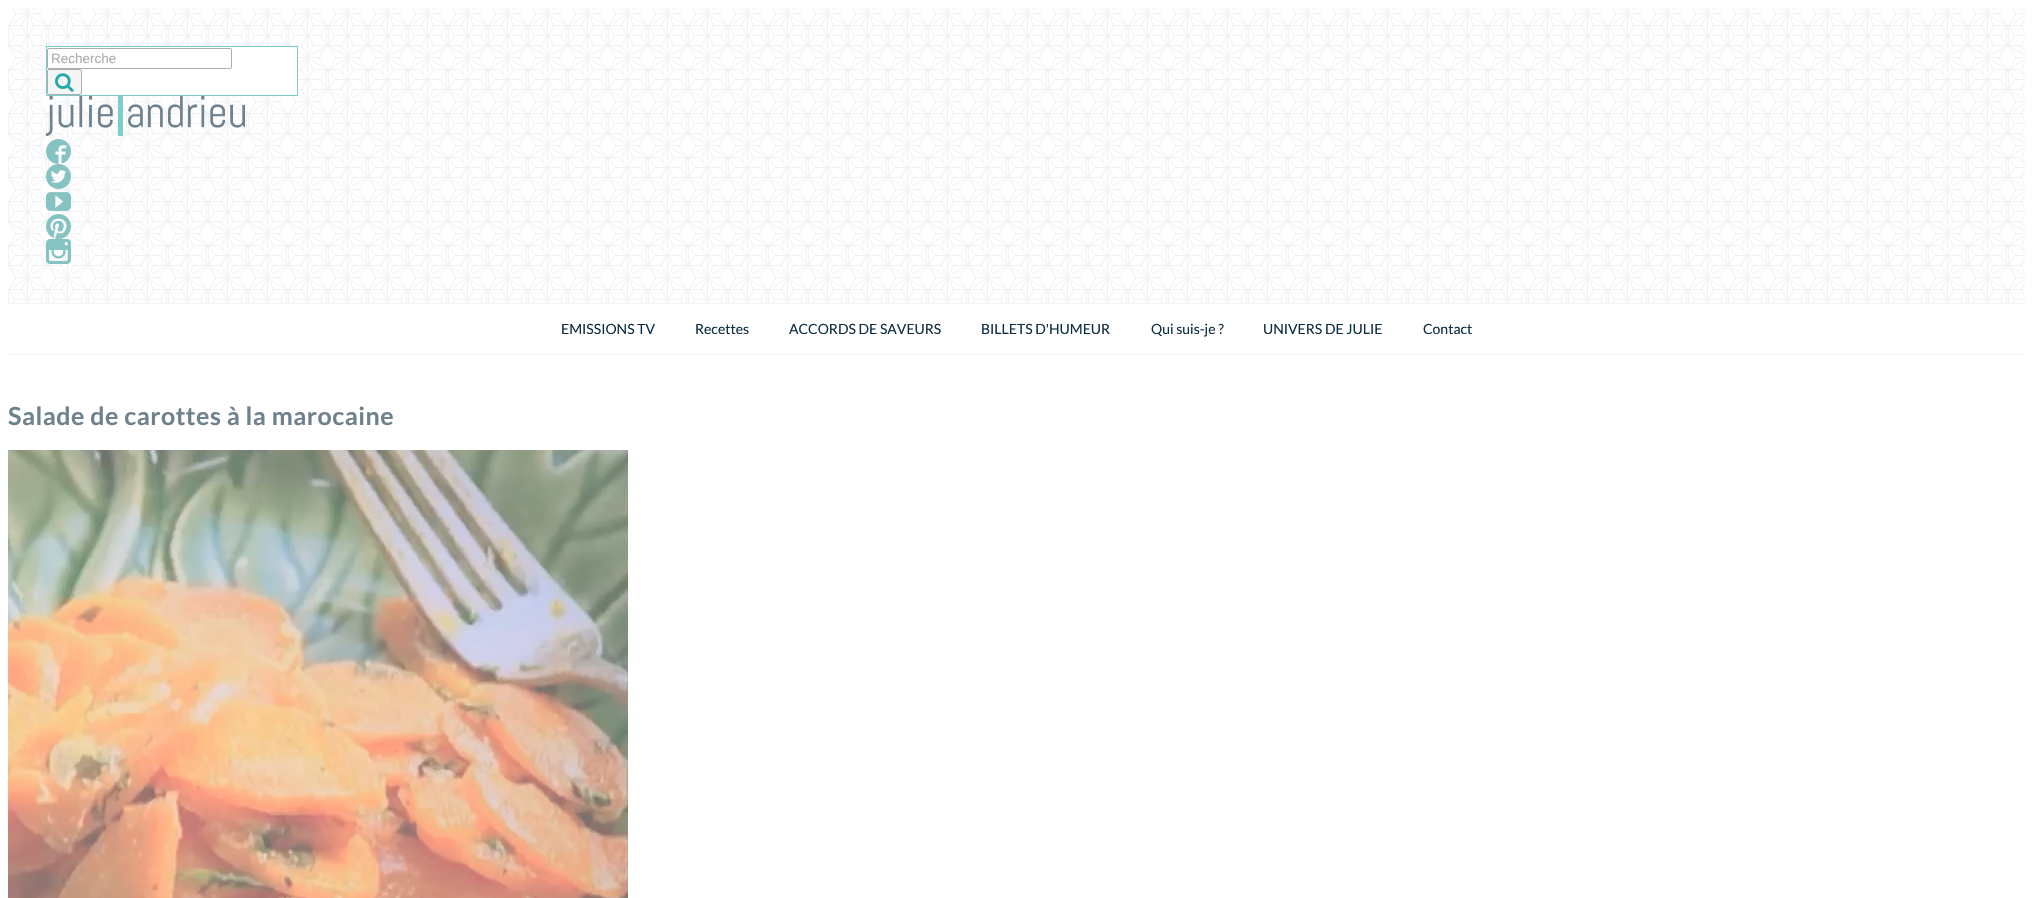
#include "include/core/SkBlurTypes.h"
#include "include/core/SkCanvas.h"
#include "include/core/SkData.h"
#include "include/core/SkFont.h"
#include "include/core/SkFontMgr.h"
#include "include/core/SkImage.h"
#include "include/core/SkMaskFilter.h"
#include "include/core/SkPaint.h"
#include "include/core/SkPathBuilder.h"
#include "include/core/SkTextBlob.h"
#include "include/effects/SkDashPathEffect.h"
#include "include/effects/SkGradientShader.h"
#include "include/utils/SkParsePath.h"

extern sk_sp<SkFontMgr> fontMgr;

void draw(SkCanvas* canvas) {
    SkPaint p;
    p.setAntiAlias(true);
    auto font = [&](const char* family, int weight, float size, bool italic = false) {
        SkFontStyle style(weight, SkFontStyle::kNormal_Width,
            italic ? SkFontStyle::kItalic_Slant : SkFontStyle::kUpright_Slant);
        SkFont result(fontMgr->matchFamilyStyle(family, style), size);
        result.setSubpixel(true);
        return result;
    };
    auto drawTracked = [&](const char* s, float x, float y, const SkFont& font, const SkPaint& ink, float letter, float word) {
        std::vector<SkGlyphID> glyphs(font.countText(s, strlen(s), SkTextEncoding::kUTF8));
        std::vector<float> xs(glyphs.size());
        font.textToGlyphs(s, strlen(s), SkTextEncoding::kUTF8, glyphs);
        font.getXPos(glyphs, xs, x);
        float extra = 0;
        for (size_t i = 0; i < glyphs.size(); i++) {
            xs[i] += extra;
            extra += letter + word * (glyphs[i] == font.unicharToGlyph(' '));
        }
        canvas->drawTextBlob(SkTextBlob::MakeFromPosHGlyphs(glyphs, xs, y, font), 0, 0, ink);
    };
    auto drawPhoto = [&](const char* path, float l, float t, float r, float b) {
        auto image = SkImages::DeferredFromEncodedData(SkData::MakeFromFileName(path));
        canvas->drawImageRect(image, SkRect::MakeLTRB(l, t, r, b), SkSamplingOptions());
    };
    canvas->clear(0xFFFFFFFF);
    drawPhoto("media/1.png", 8, 8, 2025, 303);
    p.setColor(0xFFFFFFFF);
    canvas->drawRect(SkRect::MakeLTRB(46.5f, 46.5f, 297.5f, 95.5f), p);
    p.setStyle(SkPaint::kStroke_Style);
    p.setStrokeWidth(1);
    p.setColor(0xFF7ACCCB);
    canvas->drawRect(SkRect::MakeLTRB(46.5f, 46.5f, 297.5f, 95.5f), p);
    p.setColor(0xFFADADAD);
    canvas->drawRoundRect(SkRect::MakeLTRB(47.5f, 48.5f, 231.5f, 68.5f), 1.5f, 1.5f, p);
    auto font1 = font("Liberation Sans", 400, 13.5f);
    p.setStyle(SkPaint::kFill_Style);
    p.setColor(0xFFACACAC);
    canvas->drawString("Recherche", 51, 63, font1, p);
    p.setColor(0xFFF5F5F5);
    canvas->drawRoundRect(SkRect::MakeLTRB(47.5f, 69.5f, 81.5f, 94.5f), 1.5f, 1.5f, p);
    p.setStyle(SkPaint::kStroke_Style);
    p.setColor(0xFFADADAD);
    canvas->drawRoundRect(SkRect::MakeLTRB(47.5f, 69.5f, 81.5f, 94.5f), 1.5f, 1.5f, p);
    drawPhoto("media/2.png", 55, 73, 74, 92);
    drawPhoto("media/3.png", 46, 96, 245, 136);
    drawPhoto("media/4.png", 46, 139, 71, 164);
    drawPhoto("media/5.png", 46, 164, 71, 189);
    drawPhoto("media/6.png", 46, 192, 71, 211);
    drawPhoto("media/7.png", 46, 214, 71, 239);
    drawPhoto("media/8.png", 46, 239, 71, 264);
    p.setStyle(SkPaint::kFill_Style);
    p.setColor(0xFFF5F5F5);
    canvas->drawRect(SkRect::MakeLTRB(8, 303, 2025, 304), p);
    canvas->drawRect(SkRect::MakeLTRB(8, 354, 2025, 355), p);
    auto font2 = font("Lato", 400, 14);
    p.setColor(0xFF0C2E41);
    {
        const struct { const char* s; float x, y; } items[] = {
            {"EMISSIONS TV", 561, 334},
            {"Recettes", 695, 334},
            {"ACCORDS DE SAVEURS", 789, 334},
            {"BILLETS D'HUMEUR", 981, 334},
            {"Qui suis-je ?", 1151, 334},
            {"UNIVERS DE JULIE", 1263, 334},
            {"Contact", 1423, 334},
        };
        for (auto [s, x, y] : items) {
            canvas->drawString(s, x, y, font2, p);
        }
    }
    auto font3 = font("Lato", 700, 25);
    p.setColor(0xFF6D828D);
    drawTracked("Salade de carottes à la marocaine", 8, 425, font3, p, 0.5f, 0);
    drawPhoto("media/9.png", 8, 450, 628, 898);
}
